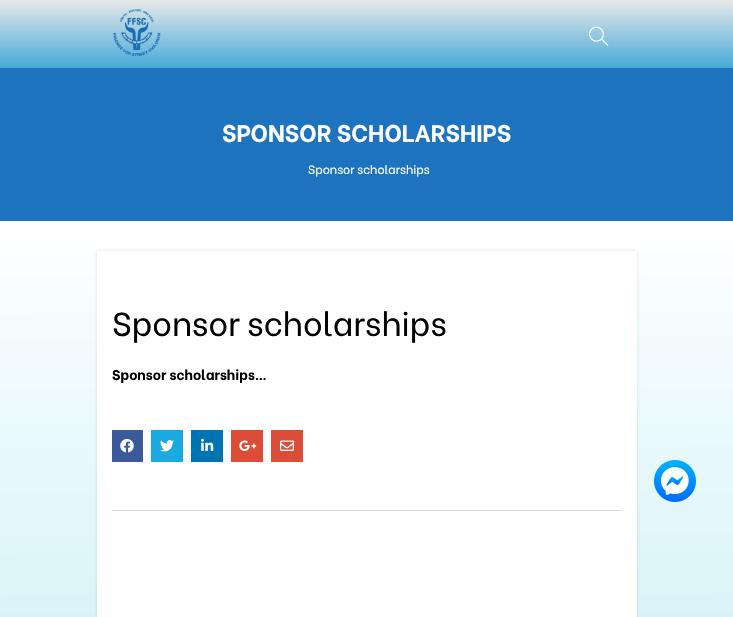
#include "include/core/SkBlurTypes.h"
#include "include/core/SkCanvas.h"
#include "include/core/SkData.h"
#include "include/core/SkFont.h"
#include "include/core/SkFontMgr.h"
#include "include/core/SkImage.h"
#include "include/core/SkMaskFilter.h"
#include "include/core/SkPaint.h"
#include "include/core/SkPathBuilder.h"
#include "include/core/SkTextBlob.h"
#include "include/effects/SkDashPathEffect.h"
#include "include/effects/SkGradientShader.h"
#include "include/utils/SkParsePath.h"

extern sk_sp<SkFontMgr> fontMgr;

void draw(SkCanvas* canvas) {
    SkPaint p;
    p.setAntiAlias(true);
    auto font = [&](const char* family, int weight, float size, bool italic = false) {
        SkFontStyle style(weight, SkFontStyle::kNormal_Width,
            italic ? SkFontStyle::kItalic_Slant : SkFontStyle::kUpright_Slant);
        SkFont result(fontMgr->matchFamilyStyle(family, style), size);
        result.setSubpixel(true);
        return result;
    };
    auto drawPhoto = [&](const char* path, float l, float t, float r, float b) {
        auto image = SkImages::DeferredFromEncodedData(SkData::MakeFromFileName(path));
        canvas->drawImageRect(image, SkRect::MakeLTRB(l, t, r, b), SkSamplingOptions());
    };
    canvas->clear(0xFFFFFFFF);
    {
        const SkColor colors[] = {0xFFE8E8E8, 0xFF45AAD8};
        const float stops[] = {0, 1};
        const SkPoint ends[] = {{367, 0}, {367, 68}};
        p.setShader(SkGradientShader::MakeLinear(ends, colors, stops, 2, SkTileMode::kClamp));
        p.setAlpha(255);
    }
    canvas->drawRect(SkRect::MakeLTRB(0, 0, 733, 68), p);
    drawPhoto("media/1.png", 112, 8, 161, 57);
    drawPhoto("media/2.png", 589, 26, 609, 46);
    p.setShader(nullptr);
    p.setColor(0xFF1E73BE);
    canvas->drawRect(SkRect::MakeLTRB(0, 68, 733, 221), p);
    auto font1 = font("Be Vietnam", 700, 24);
    p.setColor(0xFFFFFFFF);
    canvas->drawString("SPONSOR SCHOLARSHIPS", 222, 142, font1, p);
    auto font2 = font("Be Vietnam", 400, 12);
    canvas->drawString("Sponsor scholarships", 308, 174, font2, p);
    {
        const SkColor colors[] = {0xFFFFFFFF, 0xFFBAECF4};
        const float stops[] = {0, 1};
        const SkPoint ends[] = {{366, 221}, {367, 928}};
        p.setShader(SkGradientShader::MakeLinear(ends, colors, stops, 2, SkTileMode::kClamp));
        p.setAlpha(255);
    }
    canvas->drawRect(SkRect::MakeLTRB(0, 246, 733, 617), p);
    p.setShader(nullptr);
    p.setColor(0x1F000000);
    p.setMaskFilter(SkMaskFilter::MakeBlur(kNormal_SkBlurStyle, 1.5f));
    canvas->drawRect(SkRect::MakeLTRB(97, 251, 637, 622), p);
    p.setMaskFilter(nullptr);
    p.setColor(0xFFFFFFFF);
    canvas->drawRect(SkRect::MakeLTRB(97, 251, 637, 617), p);
    auto font3 = font("Be Vietnam", 400, 33);
    p.setColor(0xFF000000);
    canvas->drawString("Sponsor scholarships", 112, 336, font3, p);
    auto font4 = font("Be Vietnam", 700, 14);
    canvas->drawString("Sponsor scholarships…", 112, 380, font4, p);
    p.setColor(0xFF3B5A9A);
    canvas->drawRect(SkRect::MakeLTRB(112, 430, 143, 462), p);
    drawPhoto("media/3.png", 120, 439, 134, 453);
    p.setColor(0xFF1AA9E1);
    canvas->drawRect(SkRect::MakeLTRB(151, 430, 183, 462), p);
    drawPhoto("media/4.png", 160, 440, 174, 452);
    p.setColor(0xFF0073B2);
    canvas->drawRect(SkRect::MakeLTRB(191, 430, 223, 462), p);
    drawPhoto("media/5.png", 201, 438, 214, 451);
    p.setColor(0xFFDD4B39);
    canvas->drawRect(SkRect::MakeLTRB(231, 430, 263, 462), p);
    drawPhoto("media/6.png", 239, 440, 257, 451);
    canvas->drawRect(SkRect::MakeLTRB(271, 430, 303, 462), p);
    drawPhoto("media/7.png", 280, 440, 294, 451);
    p.setColor(0xFFDBDBDB);
    canvas->drawRect(SkRect::MakeLTRB(112, 510, 622, 511), p);
    drawPhoto("media/8.png", 654, 460, 696, 502);
}
